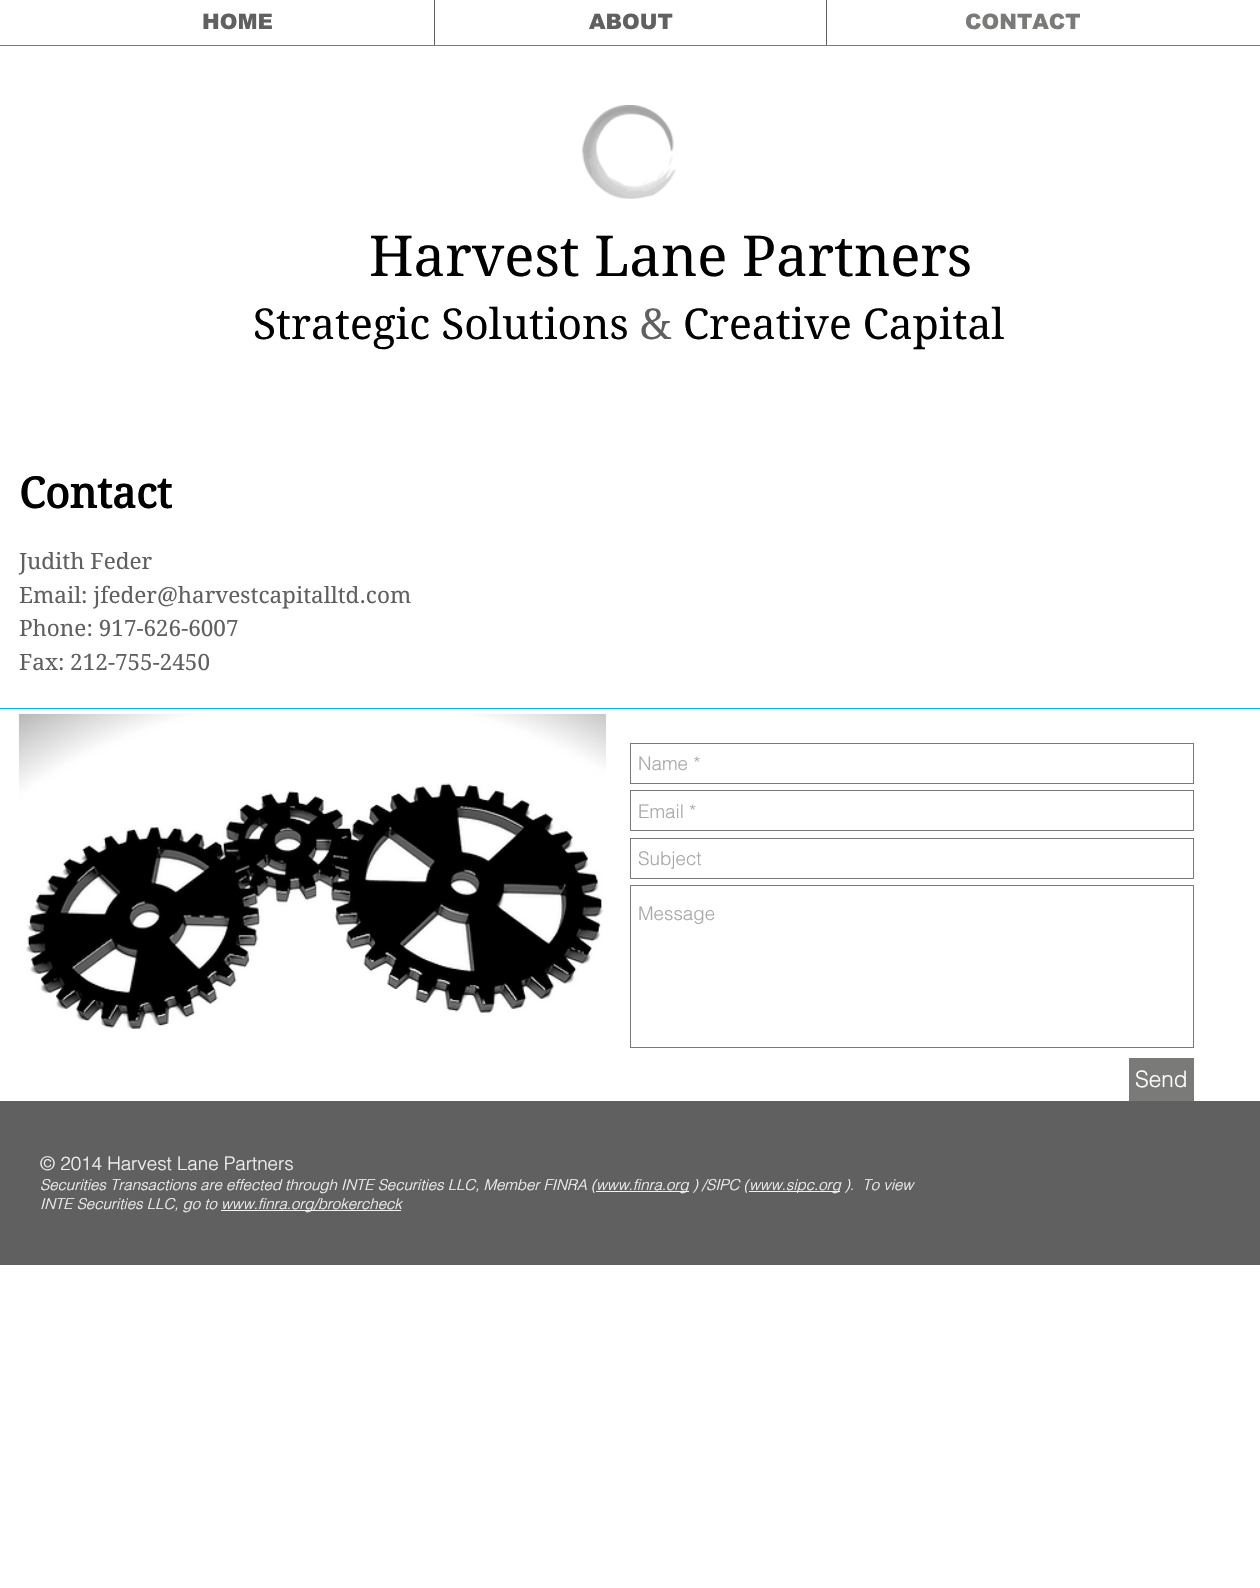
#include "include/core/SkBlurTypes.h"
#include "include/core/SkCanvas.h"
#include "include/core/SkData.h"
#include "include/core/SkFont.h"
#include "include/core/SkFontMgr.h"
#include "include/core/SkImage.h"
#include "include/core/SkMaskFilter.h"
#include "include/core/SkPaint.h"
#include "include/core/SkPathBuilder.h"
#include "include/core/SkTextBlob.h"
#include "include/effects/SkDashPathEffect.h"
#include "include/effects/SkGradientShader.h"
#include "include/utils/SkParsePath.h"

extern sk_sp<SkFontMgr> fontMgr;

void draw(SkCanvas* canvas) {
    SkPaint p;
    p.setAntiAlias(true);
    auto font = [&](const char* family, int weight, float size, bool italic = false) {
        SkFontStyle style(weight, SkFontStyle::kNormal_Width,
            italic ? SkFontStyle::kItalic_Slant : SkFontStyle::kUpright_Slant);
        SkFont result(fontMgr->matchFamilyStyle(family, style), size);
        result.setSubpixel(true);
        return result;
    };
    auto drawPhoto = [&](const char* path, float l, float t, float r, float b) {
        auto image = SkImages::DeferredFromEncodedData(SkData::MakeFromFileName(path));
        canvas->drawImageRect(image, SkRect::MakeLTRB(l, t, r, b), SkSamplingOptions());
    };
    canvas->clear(0xFFFFFFFF);
    auto font1 = font("arial", 900, 21.25f);
    p.setColor(0xFF606060);
    canvas->drawString("HOME", 202, 29, font1, p);
    canvas->drawRect(SkRect::MakeLTRB(434, 0, 435, 45), p);
    canvas->drawString("ABOUT", 589, 29, font1, p);
    canvas->drawRect(SkRect::MakeLTRB(826, 0, 827, 45), p);
    p.setColor(0xFF7A7B78);
    canvas->drawString("CONTACT", 965, 29, font1, p);
    canvas->drawRect(SkRect::MakeLTRB(0, 45, 1260, 46), p);
    drawPhoto("media/1.png", 582, 105, 676, 199);
    auto font2 = font("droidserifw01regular", 400, 56.25f);
    p.setColor(0xFF000000);
    canvas->drawString("Harvest Lane Partners", 369, 276, font2, p);
    auto font3 = font("droidserifw01regular", 400, 42.5f);
    canvas->drawString("Strategic Solutions", 253, 339, font3, p);
    p.setColor(0xFF606060);
    canvas->drawString("&", 640, 339, font3, p);
    p.setColor(0xFF000000);
    canvas->drawString("Creative Capital", 683, 339, font3, p);
    auto font4 = font("droidserifw01regular", 700, 42.5f);
    canvas->drawString("Contact", 19, 508, font4, p);
    auto font5 = font("droidserifw01regular", 400, 22.5f);
    p.setColor(0xFF606060);
    {
        const struct { const char* s; float x, y; } items[] = {
            {"Judith Feder", 19, 569},
            {"Email: jfeder@harvestcapitalltd.com", 19, 603},
            {"Phone: 917-626-6007", 19, 636},
            {"Fax: 212-755-2450", 19, 670},
        };
        for (auto [s, x, y] : items) {
            canvas->drawString(s, x, y, font5, p);
        }
    }
    p.setColor(0xFF00B9E8);
    canvas->drawRect(SkRect::MakeLTRB(0, 708, 1260, 709), p);
    drawPhoto("media/2.png", 18, 713, 606, 1029);
    p.setStyle(SkPaint::kStroke_Style);
    p.setStrokeWidth(1);
    p.setColor(0xFF7A7B78);
    canvas->drawRect(SkRect::MakeLTRB(630.5f, 743.5f, 1193.5f, 783.5f), p);
    auto font6 = font("helvetica", 300, 18.75f);
    p.setStyle(SkPaint::kFill_Style);
    p.setColor(0xFFA8A8A8);
    canvas->drawString("Name *", 638, 770, font6, p);
    p.setStyle(SkPaint::kStroke_Style);
    p.setColor(0xFF7A7B78);
    canvas->drawRect(SkRect::MakeLTRB(630.5f, 790.5f, 1193.5f, 830.5f), p);
    p.setStyle(SkPaint::kFill_Style);
    p.setColor(0xFFA8A8A8);
    canvas->drawString("Email *", 638, 818, font6, p);
    p.setStyle(SkPaint::kStroke_Style);
    p.setColor(0xFF7A7B78);
    canvas->drawRect(SkRect::MakeLTRB(630.5f, 838.5f, 1193.5f, 878.5f), p);
    p.setStyle(SkPaint::kFill_Style);
    p.setColor(0xFFA8A8A8);
    canvas->drawString("Subject", 638, 865, font6, p);
    p.setStyle(SkPaint::kStroke_Style);
    p.setColor(0xFF7A7B78);
    canvas->drawRect(SkRect::MakeLTRB(630.5f, 885.5f, 1193.5f, 1047.5f), p);
    p.setStyle(SkPaint::kFill_Style);
    p.setColor(0xFFA8A8A8);
    canvas->drawString("Message", 638, 920, font6, p);
    p.setColor(0xFF7A7B78);
    canvas->drawRect(SkRect::MakeLTRB(1129, 1058, 1194, 1101), p);
    auto font7 = font("helvetica", 300, 22.5f);
    p.setColor(0xFFFFFFFF);
    canvas->drawString("Send", 1135, 1087, font7, p);
    p.setColor(0xFF606060);
    canvas->drawRect(SkRect::MakeLTRB(0, 1101, 1260, 1265), p);
    p.setColor(0xFFF2F2F2);
    canvas->drawString("© 2014 Harvest Lane Partners", 40, 1170, font6, p);
    auto font8 = font("helvetica", 300, 15, true);
    canvas->drawString("Securities Transactions are effected through INTE Securities LLC, Member FINRA (", 40, 1190, font8, p);
    canvas->drawRect(SkRect::MakeLTRB(596, 1191, 689, 1192), p);
    canvas->drawString("www.finra.org ) /SIPC (", 596, 1190, font8, p);
    canvas->drawRect(SkRect::MakeLTRB(749, 1191, 840, 1192), p);
    canvas->drawString("www.sipc.org ).  To view", 749, 1190, font8, p);
    canvas->drawString("INTE Securities LLC, go to", 40, 1209, font8, p);
    canvas->drawRect(SkRect::MakeLTRB(221, 1210, 401, 1211), p);
    canvas->drawString("www.finra.org/brokercheck", 221, 1209, font8, p);
}
